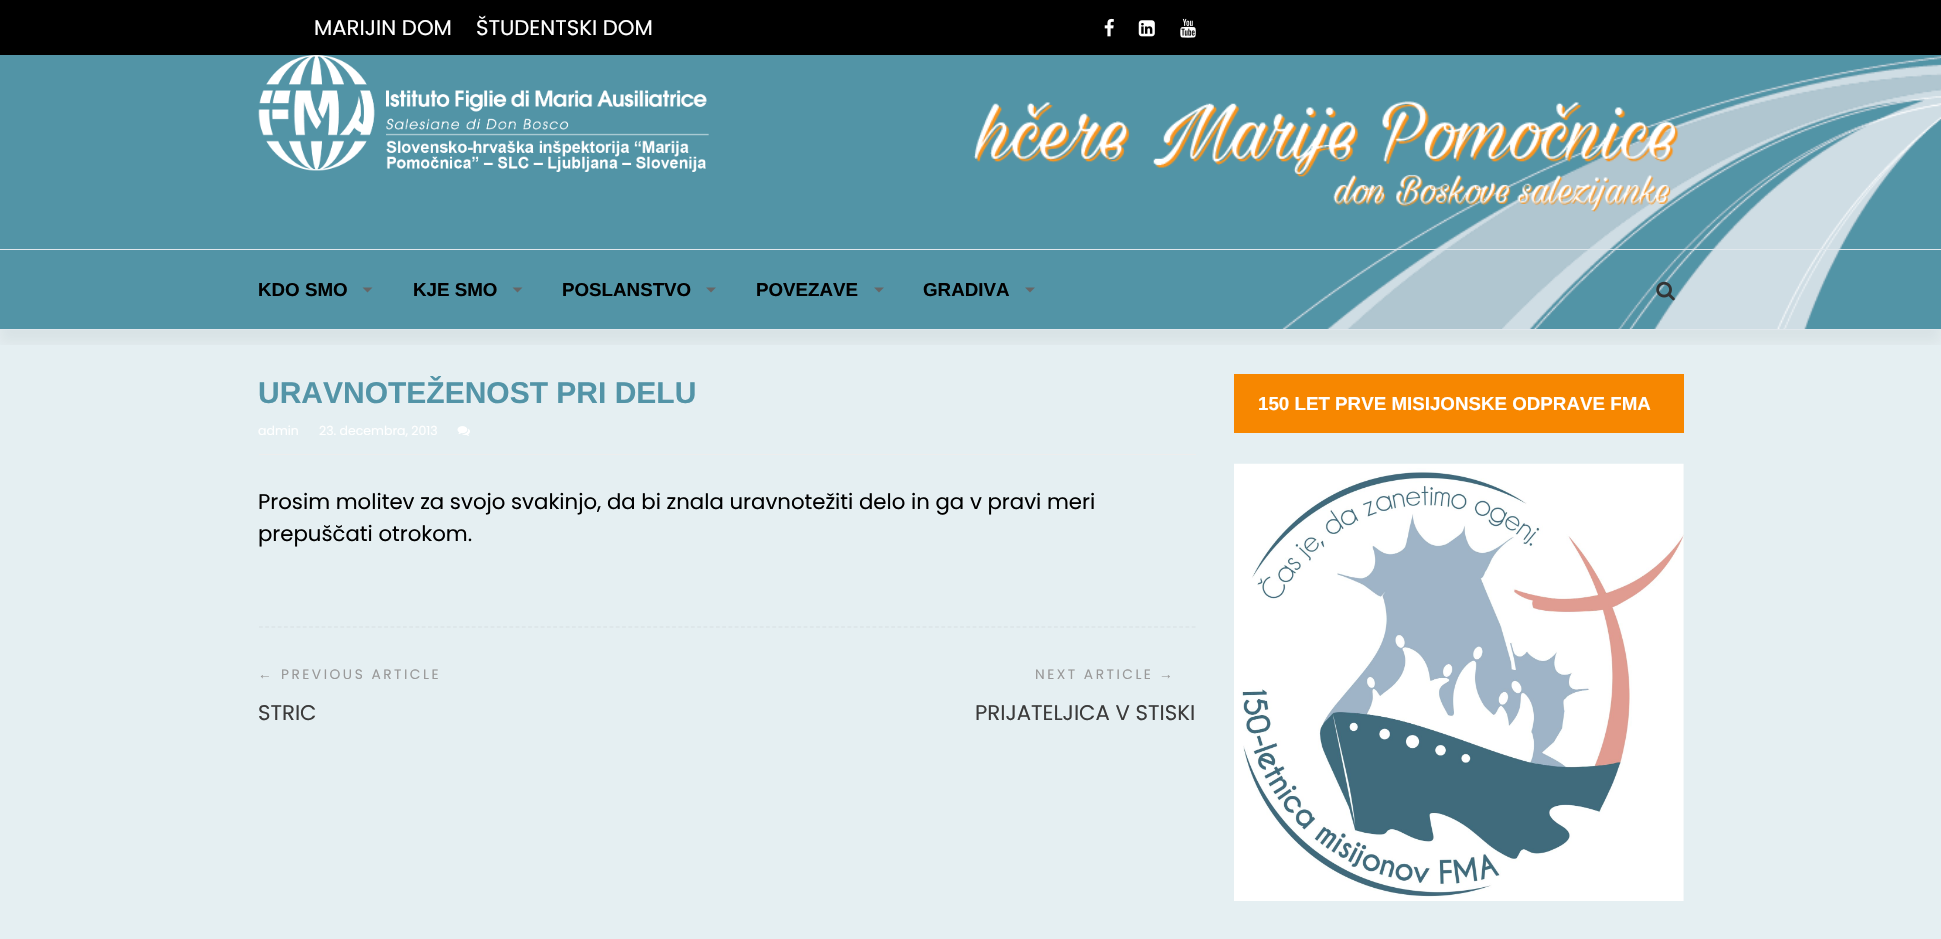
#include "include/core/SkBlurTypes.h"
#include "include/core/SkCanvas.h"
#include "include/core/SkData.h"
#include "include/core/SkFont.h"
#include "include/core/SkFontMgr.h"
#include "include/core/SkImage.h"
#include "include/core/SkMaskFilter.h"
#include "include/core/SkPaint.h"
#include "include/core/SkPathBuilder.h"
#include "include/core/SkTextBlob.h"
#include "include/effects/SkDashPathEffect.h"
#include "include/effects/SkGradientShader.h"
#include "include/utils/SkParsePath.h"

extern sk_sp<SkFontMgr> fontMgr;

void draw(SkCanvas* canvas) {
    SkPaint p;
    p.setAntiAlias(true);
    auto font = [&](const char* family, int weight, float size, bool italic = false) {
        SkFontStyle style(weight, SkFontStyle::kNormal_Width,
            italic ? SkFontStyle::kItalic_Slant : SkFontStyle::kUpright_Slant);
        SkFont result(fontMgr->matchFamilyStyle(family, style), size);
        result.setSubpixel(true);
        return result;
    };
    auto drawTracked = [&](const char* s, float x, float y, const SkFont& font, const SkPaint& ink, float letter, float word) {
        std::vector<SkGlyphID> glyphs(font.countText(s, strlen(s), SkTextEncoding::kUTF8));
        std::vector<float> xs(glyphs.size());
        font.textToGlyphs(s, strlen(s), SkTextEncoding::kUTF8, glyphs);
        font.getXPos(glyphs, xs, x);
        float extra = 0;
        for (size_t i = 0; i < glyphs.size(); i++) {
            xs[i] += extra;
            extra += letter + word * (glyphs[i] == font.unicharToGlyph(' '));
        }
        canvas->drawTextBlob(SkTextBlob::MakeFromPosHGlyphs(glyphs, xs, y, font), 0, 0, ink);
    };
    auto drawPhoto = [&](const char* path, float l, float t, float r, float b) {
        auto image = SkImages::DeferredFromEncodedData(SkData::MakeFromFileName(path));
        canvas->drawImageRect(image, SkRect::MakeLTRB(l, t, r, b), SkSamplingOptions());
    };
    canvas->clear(0xFFE5EFF2);
    p.setColor(0xFF000000);
    canvas->drawRect(SkRect::MakeLTRB(0, 0, 1941, 55), p);
    auto font1 = font("Poppins", 400, 21.25f);
    p.setColor(0xFFFFFFFF);
    canvas->drawString("MARIJIN DOM", 314, 35, font1, p);
    canvas->drawString("ŠTUDENTSKI DOM", 476, 35, font1, p);
    drawPhoto("media/1.png", 1104, 18, 1114, 37);
    drawPhoto("media/2.png", 1138, 20, 1155, 37);
    drawPhoto("media/3.png", 1180, 18, 1196, 38);
    drawPhoto("media/4.png", 0, 55, 1941, 329);
    drawPhoto("media/5.png", 258, 55, 709, 172);
    drawPhoto("media/6.png", 973, 101, 1679, 212);
    canvas->save();
    canvas->clipRect(SkRect::MakeLTRB(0, 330, 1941, 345));
    p.setColor(0x0D000000);
    p.setMaskFilter(SkMaskFilter::MakeBlur(kNormal_SkBlurStyle, 6));
    canvas->drawRect(SkRect::MakeLTRB(0, 261, 1941, 343), p);
    p.setMaskFilter(nullptr);
    canvas->restore();
    p.setColor(0xFFE1E8ED);
    canvas->drawRect(SkRect::MakeLTRB(0, 249, 1941, 250), p);
    canvas->drawRect(SkRect::MakeLTRB(0, 329, 1941, 330), p);
    auto font2 = font("Liberation Sans", 700, 18.75f);
    p.setColor(0xFF000000);
    canvas->drawString("KDO SMO", 258, 296, font2, p);
    p.setColor(0xFF666666);
    canvas->drawPath(SkPathBuilder().moveTo(362.5f, 287.5f).lineTo(372.5f, 287.5f).lineTo(367.5f, 292.5f).close().detach(), p);
    p.setColor(0xFF000000);
    canvas->drawString("KJE SMO", 413, 296, font2, p);
    p.setColor(0xFF666666);
    canvas->drawPath(SkPathBuilder().moveTo(512.5f, 287.5f).lineTo(522.5f, 287.5f).lineTo(517.5f, 292.5f).close().detach(), p);
    p.setColor(0xFF000000);
    canvas->drawString("POSLANSTVO", 562, 296, font2, p);
    p.setColor(0xFF666666);
    canvas->drawPath(SkPathBuilder().moveTo(706, 287.5f).lineTo(716, 287.5f).lineTo(711, 292.5f).close().detach(), p);
    p.setColor(0xFF000000);
    canvas->drawString("POVEZAVE", 756, 296, font2, p);
    p.setColor(0xFF666666);
    canvas->drawPath(SkPathBuilder().moveTo(874, 287.5f).lineTo(884, 287.5f).lineTo(879, 292.5f).close().detach(), p);
    p.setColor(0xFF000000);
    canvas->drawString("GRADIVA", 923, 296, font2, p);
    p.setColor(0xFF666666);
    canvas->drawPath(SkPathBuilder().moveTo(1025, 287.5f).lineTo(1035, 287.5f).lineTo(1030, 292.5f).close().detach(), p);
    drawPhoto("media/7.png", 1656, 281, 1675, 301);
    p.setColor(0xFFEDEDED);
    canvas->drawRect(SkRect::MakeLTRB(259, 454, 1196, 455), p);
    auto font3 = font("Liberation Sans", 700, 30);
    p.setColor(0xFF5394A7);
    canvas->drawString("URAVNOTEŽENOST PRI DELU", 258, 403, font3, p);
    auto font4 = font("Poppins", 400, 12.5f);
    p.setColor(0xFFFFFFFF);
    canvas->drawString("admin", 258, 435, font4, p);
    canvas->drawString("23. decembra, 2013", 319, 435, font4, p);
    drawPhoto("media/8.png", 457, 426, 470, 436);
    p.setColor(0xFF000000);
    canvas->drawString("Prosim molitev za svojo svakinjo, da bi znala uravnotežiti delo in ga v pravi meri", 258, 509, font1, p);
    canvas->drawString("prepuščati otrokom.", 258, 541, font1, p);
    p.setStyle(SkPaint::kStroke_Style);
    p.setStrokeWidth(1.2f);
    p.setColor(0xFFD7E0E3);
    p.setPathEffect(SkDashPathEffect::Make({{3.75f, 2.51f}}, 0));
    canvas->drawPath(SkPathBuilder().moveTo(259, 627).lineTo(1196, 627).detach(), p);
    p.setPathEffect(nullptr);
    auto font5 = font("Liberation Sans", 400, 13.75f);
    p.setStyle(SkPaint::kFill_Style);
    p.setColor(0xFF999999);
    drawTracked("←", 258, 679, font5, p, 2.5f, 0);
    auto font6 = font("Poppins", 400, 13.75f);
    drawTracked("PREVIOUS ARTICLE", 281, 679, font6, p, 2.5f, 0);
    p.setColor(0xFF3B3B3B);
    canvas->drawString("STRIC", 258, 720, font1, p);
    p.setColor(0xFF999999);
    drawTracked("NEXT ARTICLE", 1035, 679, font6, p, 2.5f, 0);
    drawTracked("→", 1159, 679, font5, p, 2.5f, 0);
    p.setColor(0xFF3B3B3B);
    canvas->drawString("PRIJATELJICA V STISKI", 975, 720, font1, p);
    p.setColor(0xFFF78700);
    canvas->drawRect(SkRect::MakeLTRB(1234, 374, 1684, 433), p);
    p.setColor(0xFFFFFFFF);
    canvas->drawString("150 LET PRVE MISIJONSKE ODPRAVE FMA", 1258, 410, font2, p);
    drawPhoto("media/9.png", 1234, 463, 1684, 901);
}
